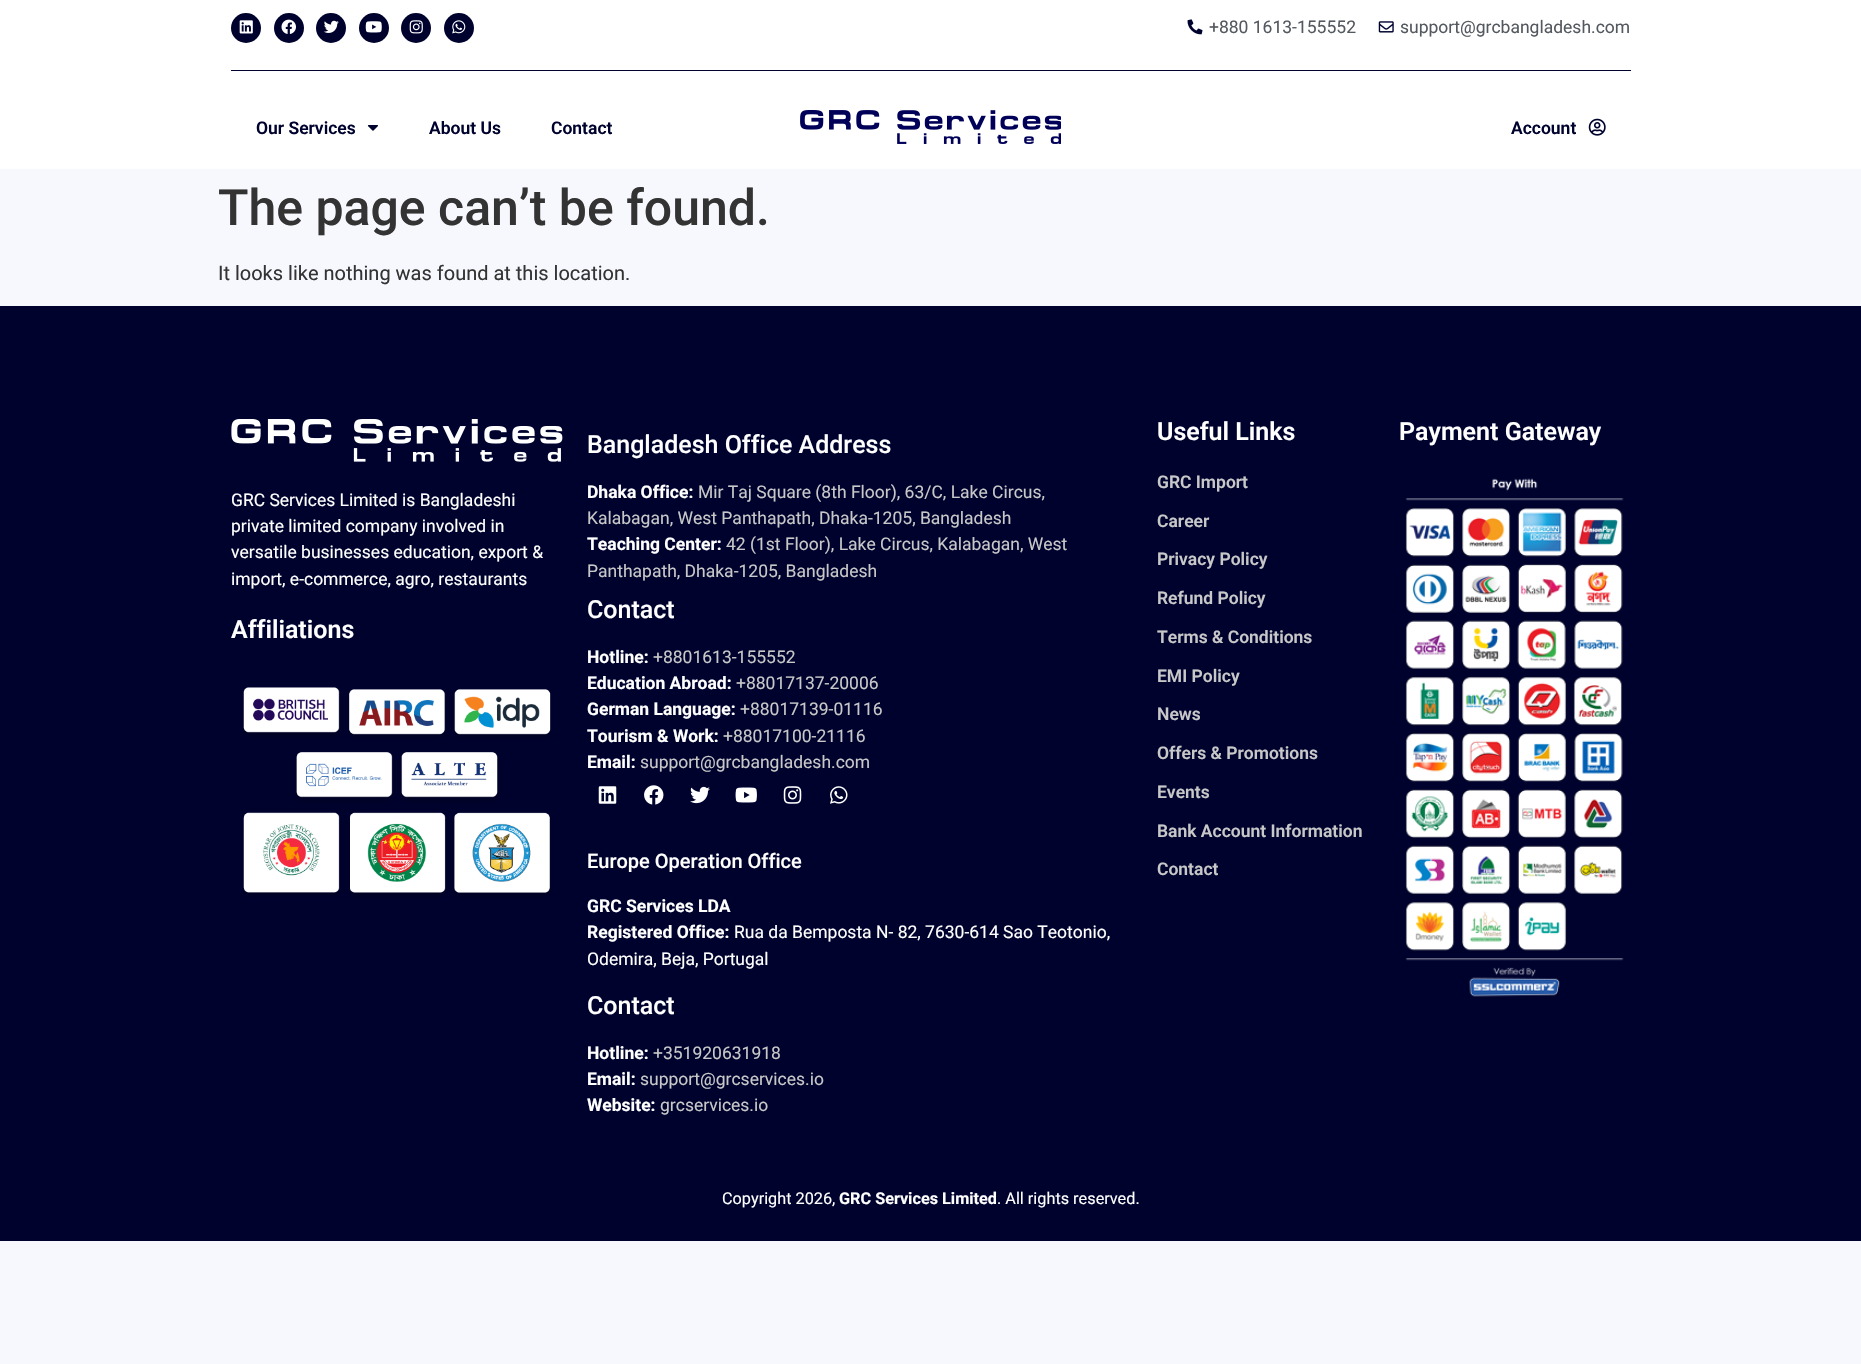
#include "include/core/SkBlurTypes.h"
#include "include/core/SkCanvas.h"
#include "include/core/SkData.h"
#include "include/core/SkFont.h"
#include "include/core/SkFontMgr.h"
#include "include/core/SkImage.h"
#include "include/core/SkMaskFilter.h"
#include "include/core/SkPaint.h"
#include "include/core/SkPathBuilder.h"
#include "include/core/SkTextBlob.h"
#include "include/effects/SkDashPathEffect.h"
#include "include/effects/SkGradientShader.h"
#include "include/utils/SkParsePath.h"

extern sk_sp<SkFontMgr> fontMgr;

void draw(SkCanvas* canvas) {
    SkPaint p;
    p.setAntiAlias(true);
    auto font = [&](const char* family, int weight, float size, bool italic = false) {
        SkFontStyle style(weight, SkFontStyle::kNormal_Width,
            italic ? SkFontStyle::kItalic_Slant : SkFontStyle::kUpright_Slant);
        SkFont result(fontMgr->matchFamilyStyle(family, style), size);
        result.setSubpixel(true);
        return result;
    };
    auto drawPhoto = [&](const char* path, float l, float t, float r, float b) {
        auto image = SkImages::DeferredFromEncodedData(SkData::MakeFromFileName(path));
        canvas->drawImageRect(image, SkRect::MakeLTRB(l, t, r, b), SkSamplingOptions());
    };
    canvas->clear(0xFFF7F8FD);
    p.setColor(0xFFFFFFFF);
    canvas->drawRect(SkRect::MakeLTRB(0, 0, 1861, 169), p);
    p.setColor(0xFF00022E);
    canvas->drawCircle(246, 28, 15, p);
    drawPhoto("media/1.png", 239, 20, 253, 34);
    canvas->drawCircle(289, 28, 15, p);
    drawPhoto("media/2.png", 281, 19, 296, 34);
    canvas->drawCircle(331, 28, 15, p);
    drawPhoto("media/3.png", 324, 20, 339, 33);
    canvas->drawCircle(374, 28, 15, p);
    drawPhoto("media/4.png", 365, 21, 382, 33);
    canvas->drawCircle(416, 28, 15, p);
    drawPhoto("media/5.png", 409, 20, 423, 34);
    canvas->drawCircle(459, 28, 15, p);
    drawPhoto("media/6.png", 452, 20, 466, 34);
    drawPhoto("media/7.png", 1187, 19, 1203, 35);
    auto font1 = font("Roboto", 400, 17.5f);
    p.setColor(0xFF54595F);
    canvas->drawString("+880 1613-155552", 1209, 33, font1, p);
    drawPhoto("media/8.png", 1378, 21, 1394, 33);
    canvas->drawString("support@grcbangladesh.com", 1400, 33, font1, p);
    p.setColor(0xFF00022E);
    canvas->drawRect(SkRect::MakeLTRB(231, 70, 1631, 71), p);
    auto font2 = font("Roboto", 600, 17.5f);
    canvas->drawString("Our Services", 256, 134, font2, p);
    drawPhoto("media/9.png", 367, 125, 378, 131);
    canvas->drawString("About Us", 429, 134, font2, p);
    canvas->drawString("Contact", 551, 134, font2, p);
    drawPhoto("media/10.png", 800, 110, 1061, 144);
    canvas->drawString("Account", 1511, 134, font2, p);
    drawPhoto("media/11.png", 1588, 118, 1606, 136);
    auto font3 = font("Roboto", 500, 50);
    p.setColor(0xFF333333);
    canvas->drawString("The page can’t be found.", 218, 225, font3, p);
    auto font4 = font("Roboto", 400, 20);
    canvas->drawString("It looks like nothing was found at this location.", 218, 280, font4, p);
    p.setColor(0xFF00022E);
    canvas->drawRect(SkRect::MakeLTRB(0, 306, 1861, 1241), p);
    drawPhoto("media/12.png", 231, 419, 563, 462);
    p.setColor(0xFFFFFFFF);
    {
        const struct { const char* s; float x, y; } items[] = {
            {"GRC Services Limited is Bangladeshi", 231, 506},
            {"private limited company involved in", 231, 532},
            {"versatile businesses education, export &", 231, 558},
            {"import, e-commerce, agro, restaurants", 231, 585},
        };
        for (auto [s, x, y] : items) {
            canvas->drawString(s, x, y, font1, p);
        }
    }
    auto font5 = font("Roboto", 600, 25);
    canvas->drawString("Affiliations", 231, 638, font5, p);
    drawPhoto("media/13.png", 242, 687, 552, 898);
    auto font6 = font("Roboto", 500, 25);
    canvas->drawString("Bangladesh Office Address", 587, 453, font6, p);
    auto font7 = font("Roboto", 700, 17.5f);
    canvas->drawString("Dhaka Office:", 587, 498, font7, p);
    p.setColor(0xFFC8C8C8);
    canvas->drawString("Mir Taj Square (8th Floor), 63/C, Lake Circus,", 698, 498, font1, p);
    canvas->drawString("Kalabagan, West Panthapath, Dhaka-1205, Bangladesh", 587, 524, font1, p);
    p.setColor(0xFFFFFFFF);
    canvas->drawString("Teaching Center:", 587, 550, font7, p);
    p.setColor(0xFFC8C8C8);
    canvas->drawString("42 (1st Floor), Lake Circus, Kalabagan, West", 726, 550, font1, p);
    canvas->drawString("Panthapath, Dhaka-1205, Bangladesh", 587, 577, font1, p);
    p.setColor(0xFFFFFFFF);
    canvas->drawString("Contact", 587, 618, font6, p);
    canvas->drawString("Hotline:", 587, 663, font7, p);
    p.setColor(0xFFC8C8C8);
    canvas->drawString("+8801613-155552", 653, 663, font1, p);
    p.setColor(0xFFFFFFFF);
    canvas->drawString("Education Abroad:", 587, 689, font7, p);
    p.setColor(0xFFC8C8C8);
    canvas->drawString("+88017137-20006", 736, 689, font1, p);
    p.setColor(0xFFFFFFFF);
    canvas->drawString("German Language:", 587, 715, font7, p);
    p.setColor(0xFFC8C8C8);
    canvas->drawString("+88017139-01116", 740, 715, font1, p);
    p.setColor(0xFFFFFFFF);
    canvas->drawString("Tourism & Work:", 587, 742, font7, p);
    p.setColor(0xFFC8C8C8);
    canvas->drawString("+88017100-21116", 723, 742, font1, p);
    p.setColor(0xFFFFFFFF);
    canvas->drawString("Email:", 587, 768, font7, p);
    p.setColor(0xFFC8C8C8);
    canvas->drawString("support@grcbangladesh.com", 640, 768, font1, p);
    drawPhoto("media/14.png", 598, 786, 617, 804);
    drawPhoto("media/15.png", 644, 785, 664, 805);
    drawPhoto("media/16.png", 690, 786, 710, 804);
    drawPhoto("media/17.png", 735, 787, 757, 803);
    drawPhoto("media/18.png", 783, 786, 802, 804);
    drawPhoto("media/19.png", 830, 786, 848, 804);
    auto font8 = font("Roboto", 500, 20);
    p.setColor(0xFFFFFFFF);
    canvas->drawString("Europe Operation Office", 587, 868, font8, p);
    canvas->drawString("GRC Services LDA", 587, 912, font7, p);
    canvas->drawString("Registered Office:", 587, 938, font7, p);
    canvas->drawString("Rua da Bemposta N- 82, 7630-614 Sao Teotonio,", 734, 938, font1, p);
    canvas->drawString("Odemira, Beja, Portugal", 587, 965, font1, p);
    canvas->drawString("Contact", 587, 1014, font6, p);
    canvas->drawString("Hotline:", 587, 1059, font7, p);
    p.setColor(0xFFC8C8C8);
    canvas->drawString("+351920631918", 653, 1059, font1, p);
    p.setColor(0xFFFFFFFF);
    canvas->drawString("Email:", 587, 1085, font7, p);
    p.setColor(0xFFC8C8C8);
    canvas->drawString("support@grcservices.io", 640, 1085, font1, p);
    p.setColor(0xFFFFFFFF);
    canvas->drawString("Website:", 587, 1111, font7, p);
    p.setColor(0xFFC8C8C8);
    canvas->drawString("grcservices.io", 660, 1111, font1, p);
    p.setColor(0xFFFFFFFF);
    canvas->drawString("Useful Links", 1157, 440, font5, p);
    p.setColor(0xFFC8C8C8);
    {
        const struct { const char* s; float x, y; } items[] = {
            {"GRC Import", 1157, 488},
            {"Career", 1157, 527},
            {"Privacy Policy", 1157, 565},
            {"Refund Policy", 1157, 604},
            {"Terms & Conditions", 1157, 643},
            {"EMI Policy", 1157, 682},
            {"News", 1157, 720},
            {"Offers & Promotions", 1157, 759},
            {"Events", 1157, 798},
            {"Bank Account Information", 1157, 837},
            {"Contact", 1157, 875},
        };
        for (auto [s, x, y] : items) {
            canvas->drawString(s, x, y, font2, p);
        }
    }
    p.setColor(0xFFFFFFFF);
    canvas->drawString("Payment Gateway", 1399, 440, font5, p);
    drawPhoto("media/20.png", 1405, 478, 1624, 997);
    auto font9 = font("Roboto", 400, 16.25f);
    canvas->drawString("Copyright 2026,", 722, 1204, font9, p);
    auto font10 = font("Roboto", 700, 16.25f);
    canvas->drawString("GRC Services Limited", 839, 1204, font10, p);
    canvas->drawString(". All rights reserved.", 997, 1204, font9, p);
}
